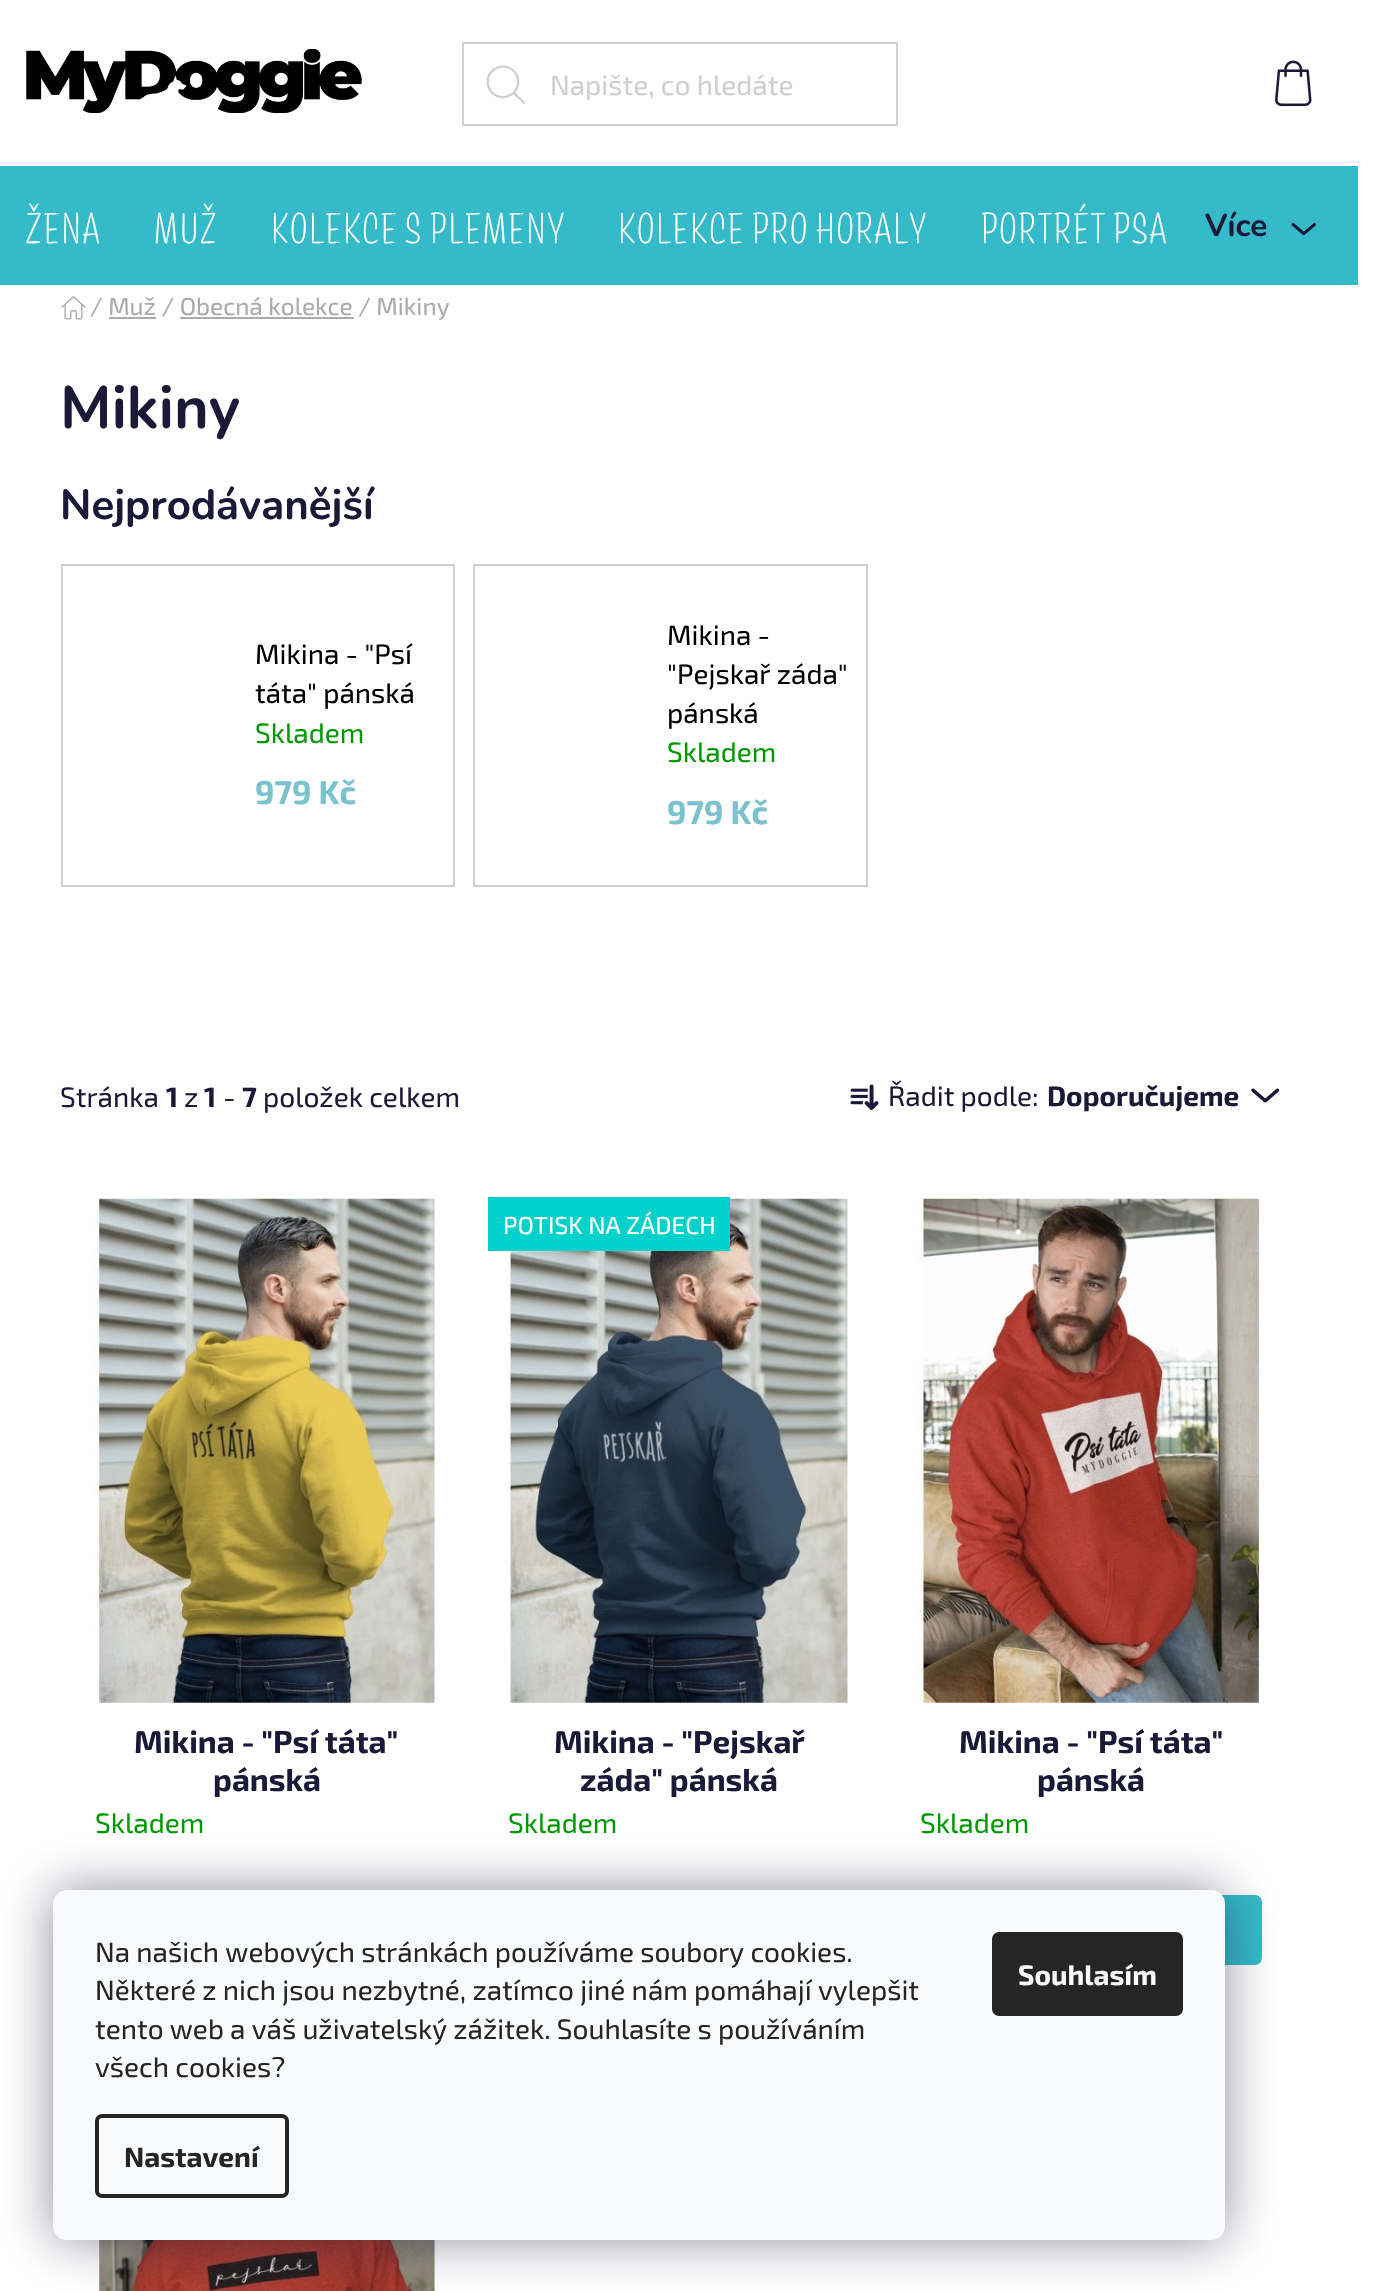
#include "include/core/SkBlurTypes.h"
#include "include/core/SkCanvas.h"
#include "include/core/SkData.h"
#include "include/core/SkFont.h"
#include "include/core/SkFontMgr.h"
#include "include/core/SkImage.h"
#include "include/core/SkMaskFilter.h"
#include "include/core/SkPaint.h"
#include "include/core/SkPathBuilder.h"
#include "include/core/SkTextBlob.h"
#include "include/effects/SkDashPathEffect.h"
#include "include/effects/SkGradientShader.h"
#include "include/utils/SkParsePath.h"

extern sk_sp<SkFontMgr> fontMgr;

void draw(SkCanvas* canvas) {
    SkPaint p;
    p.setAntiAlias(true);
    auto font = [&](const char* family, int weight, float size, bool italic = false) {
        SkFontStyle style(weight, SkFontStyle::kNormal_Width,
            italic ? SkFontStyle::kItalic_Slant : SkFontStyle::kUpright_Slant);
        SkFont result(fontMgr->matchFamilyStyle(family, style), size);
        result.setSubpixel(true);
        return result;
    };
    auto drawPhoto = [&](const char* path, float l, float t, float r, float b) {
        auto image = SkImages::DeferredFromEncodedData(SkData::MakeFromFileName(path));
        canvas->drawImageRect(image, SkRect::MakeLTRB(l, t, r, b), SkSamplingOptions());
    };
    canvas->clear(0xFFFFFFFF);
    drawPhoto("media/1.png", 26, 49, 362, 113);
    p.setStyle(SkPaint::kStroke_Style);
    p.setStrokeWidth(2);
    p.setColor(0xFFCFCFCF);
    canvas->drawRect(SkRect::MakeLTRB(463, 43, 897, 125), p);
    drawPhoto("media/2.png", 486, 65, 525, 104);
    canvas->save();
    canvas->clipRect(SkRect::MakeLTRB(551, 67, 889, 100));
    auto font1 = font("Exo 2", 400, 28);
    p.setStyle(SkPaint::kFill_Style);
    canvas->drawString("Napište, co hledáte", 550, 95, font1, p);
    canvas->restore();
    drawPhoto("media/3.png", 1275, 60, 1312, 107);
    p.setColor(0xFF34BAC9);
    canvas->drawRect(SkRect::MakeLTRB(0, 166, 1358, 285), p);
    auto font2 = font("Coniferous", 100, 45.5f);
    p.setColor(0xFFFFFFFF);
    {
        const struct { const char* s; float x, y; } items[] = {
            {"ŽENA", 25, 243},
            {"MUŽ", 153, 243},
            {"KOLEKCE S PLEMENY", 270, 243},
            {"KOLEKCE PRO HORALY", 617, 243},
            {"PORTRÉT PSA", 980, 243},
        };
        for (auto [s, x, y] : items) {
            canvas->drawString(s, x, y, font2, p);
        }
    }
    auto font3 = font("Nunito", 700, 31.5f);
    p.setColor(0xFF1A1937);
    canvas->drawString("Více", 1205, 236, font3, p);
    drawPhoto("media/4.png", 1291, 222, 1316, 236);
    drawPhoto("media/5.png", 61, 296, 86, 320);
    auto font4 = font("Exo 2", 400, 24.5f);
    p.setColor(0xFFAAAAAA);
    canvas->drawString("/ Muž / Obecná kolekce / Mikiny", 90, 315, font4, p);
    canvas->drawRect(SkRect::MakeLTRB(109, 317, 156, 319), p);
    canvas->drawRect(SkRect::MakeLTRB(180, 317, 354, 319), p);
    auto font5 = font("Nunito", 700, 59.5f);
    p.setColor(0xFF1A1937);
    canvas->drawString("Mikiny", 60, 428, font5, p);
    auto font6 = font("Nunito", 700, 42);
    canvas->drawString("Nejprodávanější", 60, 519, font6, p);
    p.setStyle(SkPaint::kStroke_Style);
    p.setColor(0xFFCFCFCF);
    canvas->drawRect(SkRect::MakeLTRB(62, 565, 454, 886), p);
    p.setStyle(SkPaint::kFill_Style);
    p.setColor(0xFF000000);
    canvas->drawString("Mikina - \"Psí", 255, 664, font1, p);
    canvas->drawString("táta\" pánská", 255, 703, font1, p);
    p.setColor(0xFF009901);
    canvas->drawString("Skladem", 255, 743, font1, p);
    auto font7 = font("Exo 2", 700, 33);
    p.setColor(0xFF7BC2CF);
    canvas->drawString("979 Kč", 255, 804, font7, p);
    p.setStyle(SkPaint::kStroke_Style);
    p.setColor(0xFFCFCFCF);
    canvas->drawRect(SkRect::MakeLTRB(474, 565, 867, 886), p);
    p.setStyle(SkPaint::kFill_Style);
    p.setColor(0xFF000000);
    {
        const struct { const char* s; float x, y; } items[] = {
            {"Mikina -", 667, 645},
            {"\"Pejskař záda\"", 667, 684},
            {"pánská", 667, 723},
        };
        for (auto [s, x, y] : items) {
            canvas->drawString(s, x, y, font1, p);
        }
    }
    p.setColor(0xFF009901);
    canvas->drawString("Skladem", 667, 762, font1, p);
    p.setColor(0xFF7BC2CF);
    canvas->drawString("979 Kč", 667, 824, font7, p);
    p.setColor(0xFF1A1937);
    canvas->drawString("Stránka", 60, 1107, font1, p);
    auto font8 = font("Exo 2", 700, 28);
    canvas->drawString("1", 166, 1107, font8, p);
    canvas->drawString("z", 184, 1107, font1, p);
    canvas->drawString("1", 204, 1107, font8, p);
    canvas->drawString("-", 223, 1107, font1, p);
    canvas->drawString("7", 242, 1107, font8, p);
    canvas->drawString("položek celkem", 263, 1107, font1, p);
    drawPhoto("media/6.png", 850, 1084, 879, 1110);
    canvas->drawString("Řadit podle:", 888, 1106, font1, p);
    canvas->drawString("Doporučujeme", 1047, 1106, font8, p);
    drawPhoto("media/7.png", 1251, 1088, 1280, 1103);
    drawPhoto("media/8.png", 93, 1198, 435, 1703);
    auto font9 = font("Exo 2", 700, 31.5f);
    canvas->drawString("Mikina - \"Psí táta\"", 134, 1753, font9, p);
    canvas->drawString("pánská", 213, 1791, font9, p);
    p.setColor(0xFF009901);
    canvas->drawString("Skladem", 95, 1833, font1, p);
    drawPhoto("media/9.png", 505, 1198, 848, 1703);
    p.setColor(0xFF00D2CB);
    canvas->drawRect(SkRect::MakeLTRB(488, 1197, 730, 1251), p);
    p.setColor(0xFFFFFFFF);
    canvas->drawString("POTISK NA ZÁDECH", 503, 1234, font4, p);
    p.setColor(0xFF1A1937);
    canvas->drawString("Mikina - \"Pejskař", 554, 1753, font9, p);
    canvas->drawString("záda\" pánská", 580, 1791, font9, p);
    p.setColor(0xFF009901);
    canvas->drawString("Skladem", 508, 1833, font1, p);
    drawPhoto("media/10.png", 917, 1198, 1261, 1703);
    p.setColor(0xFF1A1937);
    canvas->drawString("Mikina - \"Psí táta\"", 959, 1753, font9, p);
    canvas->drawString("pánská", 1037, 1791, font9, p);
    p.setColor(0xFF009901);
    canvas->drawString("Skladem", 920, 1833, font1, p);
    p.setColor(0xFF34BAC9);
    canvas->drawRoundRect(SkRect::MakeLTRB(1083, 1895, 1262, 1965), 7, 7, p);
    drawPhoto("media/11.png", 93, 2240, 435, 2291);
    p.setColor(0x801B1939);
    p.setMaskFilter(SkMaskFilter::MakeBlur(kNormal_SkBlurStyle, 26));
    canvas->drawRoundRect(SkRect::MakeLTRB(53, 1890, 1225, 2240), 14, 14, p);
    p.setMaskFilter(nullptr);
    p.setColor(0xFFF8FAFB);
    canvas->drawRoundRect(SkRect::MakeLTRB(53, 1890, 1225, 2240), 14, 14, p);
    p.setColor(0xFF252525);
    {
        const struct { const char* s; float x, y; } items[] = {
            {"Na našich webových stránkách používáme soubory cookies.", 95, 1962},
            {"Některé z nich jsou nezbytné, zatímco jiné nám pomáhají vylepšit", 95, 2000},
            {"tento web a váš uživatelský zážitek. Souhlasíte s používáním", 95, 2039},
            {"všech cookies?", 95, 2077},
        };
        for (auto [s, x, y] : items) {
            canvas->drawString(s, x, y, font1, p);
        }
    }
    p.setStyle(SkPaint::kStroke_Style);
    p.setStrokeWidth(4);
    canvas->drawRoundRect(SkRect::MakeLTRB(97, 2116, 287, 2196), 5, 5, p);
    p.setStyle(SkPaint::kFill_Style);
    canvas->drawString("Nastavení", 124, 2167, font8, p);
    canvas->drawRoundRect(SkRect::MakeLTRB(992, 1932, 1183, 2016), 7, 7, p);
    p.setColor(0xFFF8FAFB);
    canvas->drawString("Souhlasím", 1018, 1985, font8, p);
}
